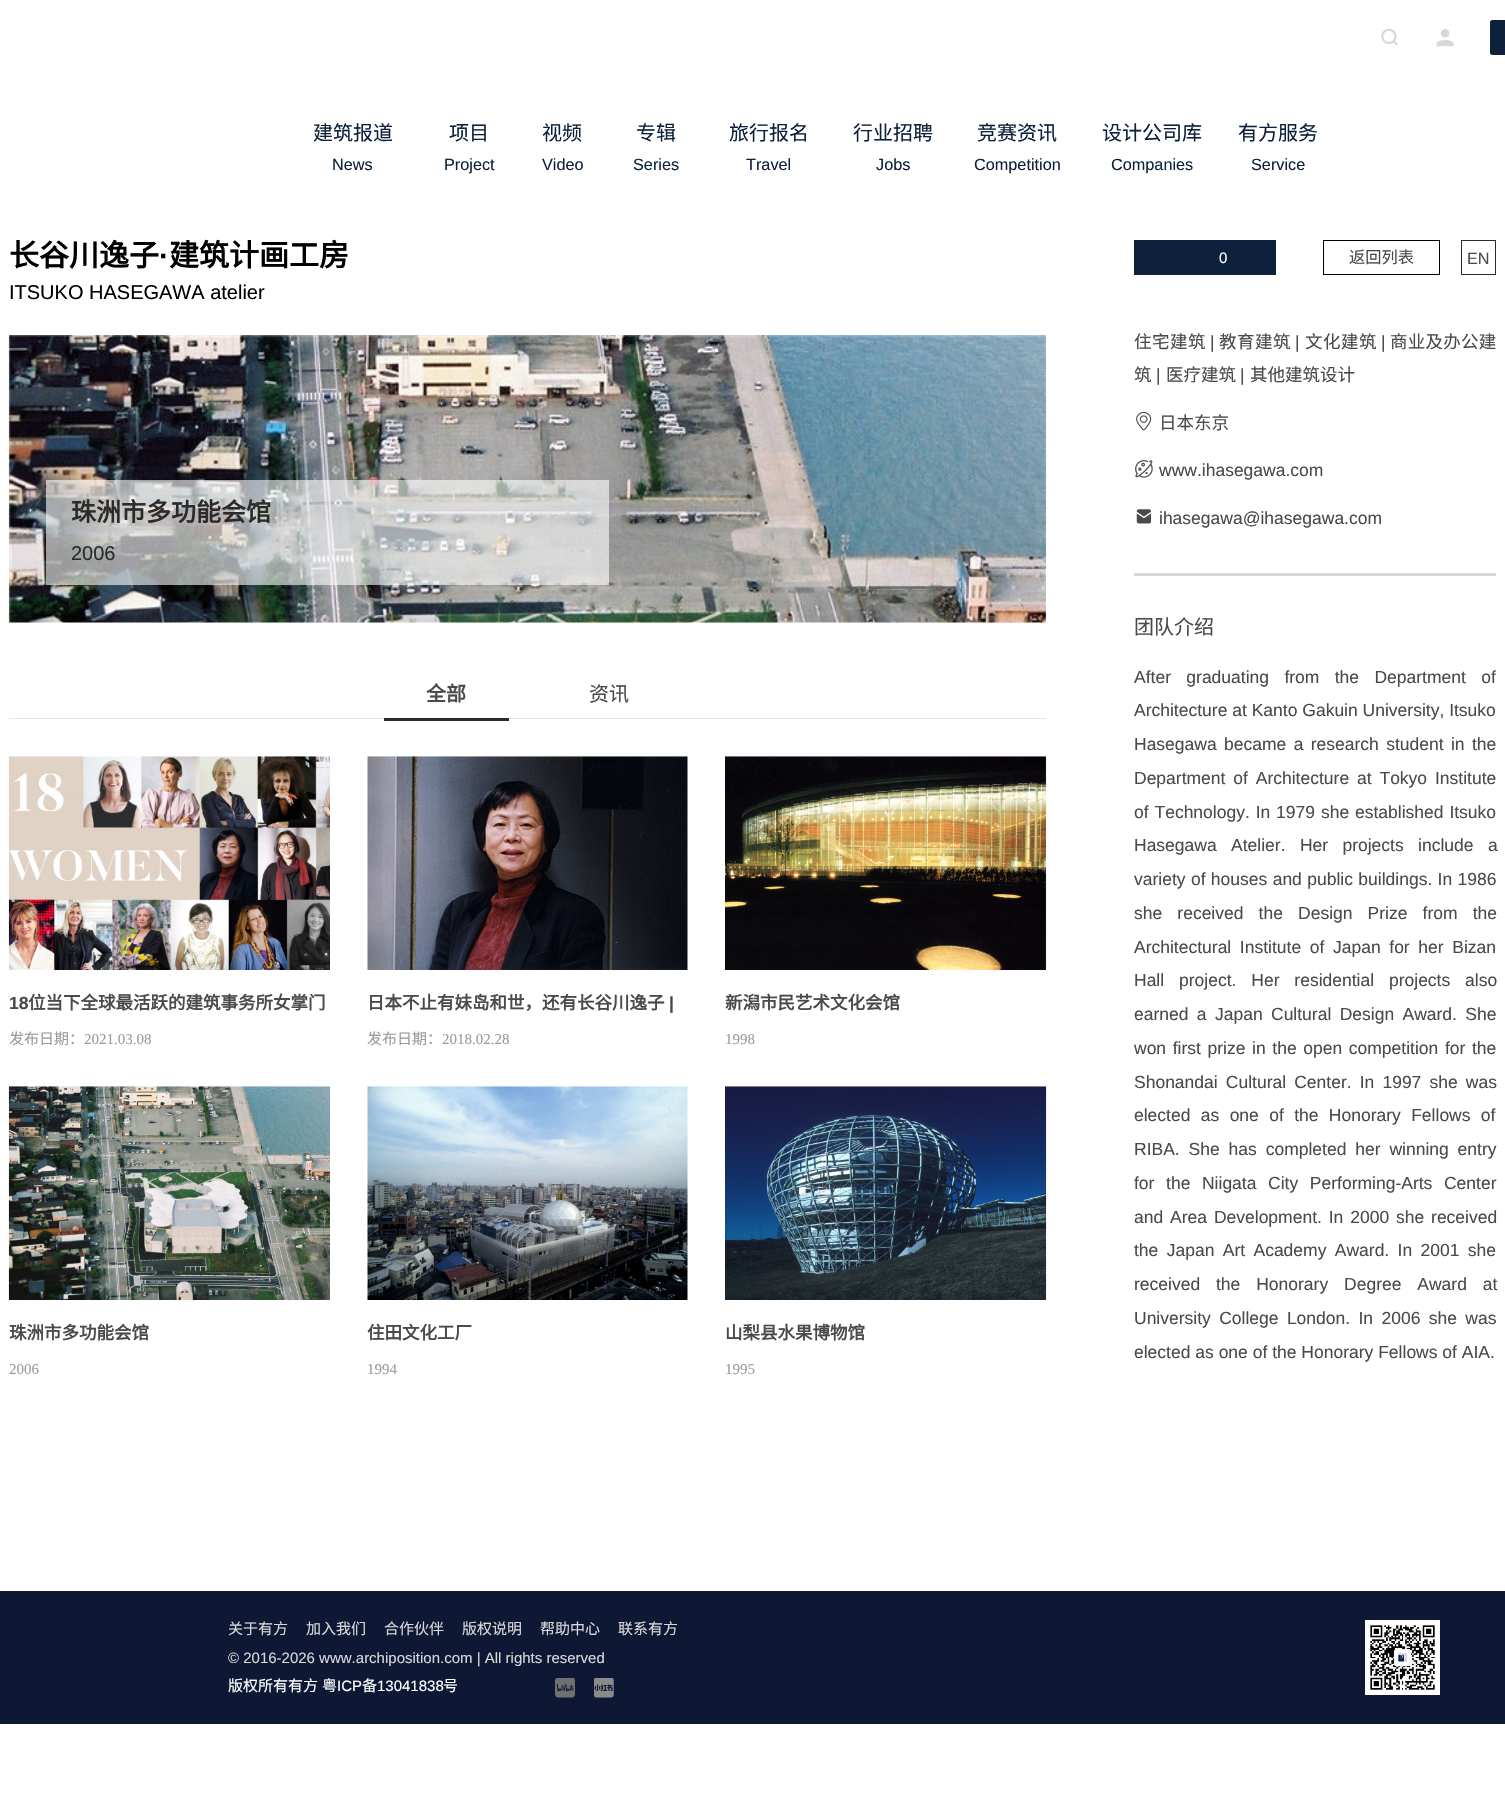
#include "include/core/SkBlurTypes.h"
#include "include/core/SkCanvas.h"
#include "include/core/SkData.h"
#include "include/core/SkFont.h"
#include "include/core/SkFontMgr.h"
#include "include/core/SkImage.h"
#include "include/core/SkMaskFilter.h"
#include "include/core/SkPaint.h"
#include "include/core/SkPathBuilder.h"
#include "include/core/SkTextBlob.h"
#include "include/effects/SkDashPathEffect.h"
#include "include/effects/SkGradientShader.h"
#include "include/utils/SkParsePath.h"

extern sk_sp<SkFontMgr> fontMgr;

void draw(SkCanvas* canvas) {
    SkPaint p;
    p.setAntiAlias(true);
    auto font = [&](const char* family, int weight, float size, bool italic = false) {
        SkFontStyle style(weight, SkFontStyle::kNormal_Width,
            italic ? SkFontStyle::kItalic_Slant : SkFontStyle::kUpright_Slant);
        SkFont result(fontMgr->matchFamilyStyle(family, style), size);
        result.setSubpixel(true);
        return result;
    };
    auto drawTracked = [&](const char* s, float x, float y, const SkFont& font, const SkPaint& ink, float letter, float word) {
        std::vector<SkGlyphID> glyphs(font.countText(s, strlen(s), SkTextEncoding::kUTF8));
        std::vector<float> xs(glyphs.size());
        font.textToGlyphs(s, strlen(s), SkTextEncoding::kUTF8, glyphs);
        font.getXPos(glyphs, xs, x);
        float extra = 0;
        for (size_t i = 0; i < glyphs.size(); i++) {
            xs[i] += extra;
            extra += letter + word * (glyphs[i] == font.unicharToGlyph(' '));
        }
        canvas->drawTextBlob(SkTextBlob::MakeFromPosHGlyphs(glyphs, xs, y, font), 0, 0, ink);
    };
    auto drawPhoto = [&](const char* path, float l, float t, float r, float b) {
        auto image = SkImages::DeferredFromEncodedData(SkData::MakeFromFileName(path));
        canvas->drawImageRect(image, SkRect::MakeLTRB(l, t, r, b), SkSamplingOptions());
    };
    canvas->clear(0xFFFFFFFF);
    drawPhoto("media/1.png", 1381, 28, 1398, 46);
    drawPhoto("media/2.png", 1436, 29, 1454, 47);
    p.setColor(0xFF0D213C);
    canvas->drawRoundRect(SkRect::MakeLTRB(1490, 20, 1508, 55), 2.5f, 2.5f, p);
    auto font1 = font("Noto Sans CJK SC", 400, 20);
    canvas->drawString("建筑报道", 313, 140, font1, p);
    auto font2 = font("Liberation Sans", 400, 16.25f);
    canvas->drawString("News", 332, 170, font2, p);
    canvas->drawString("项目", 449, 140, font1, p);
    canvas->drawString("Project", 444, 170, font2, p);
    canvas->drawString("视频", 542, 140, font1, p);
    canvas->drawString("Video", 542, 170, font2, p);
    canvas->drawString("专辑", 636, 140, font1, p);
    canvas->drawString("Series", 633, 170, font2, p);
    canvas->drawString("旅行报名", 729, 140, font1, p);
    canvas->drawString("Travel", 746, 170, font2, p);
    canvas->drawString("行业招聘", 853, 140, font1, p);
    canvas->drawString("Jobs", 876, 170, font2, p);
    canvas->drawString("竞赛资讯", 977, 140, font1, p);
    canvas->drawString("Competition", 974, 170, font2, p);
    canvas->drawString("设计公司库", 1102, 140, font1, p);
    canvas->drawString("Companies", 1111, 170, font2, p);
    canvas->drawString("有方服务", 1238, 140, font1, p);
    canvas->drawString("Service", 1251, 170, font2, p);
    auto font3 = font("Noto Sans CJK SC", 700, 30);
    p.setColor(0xFF000000);
    canvas->drawString("长谷川逸子", 9, 266, font3, p);
    auto font4 = font("Liberation Sans", 700, 30);
    canvas->drawString("·", 159, 266, font4, p);
    canvas->drawString("建筑计画工房", 169, 266, font3, p);
    auto font5 = font("Liberation Sans", 400, 20);
    canvas->drawString("ITSUKO HASEGAWA atelier", 9, 299, font5, p);
    drawPhoto("media/3.png", 8, 335, 1047, 623);
    p.setColor(0x99FFFFFF);
    canvas->drawRect(SkRect::MakeLTRB(46, 480, 609, 585), p);
    auto font6 = font("Noto Sans CJK SC", 700, 25);
    p.setColor(0xFF2B2B2B);
    canvas->drawString("珠洲市多功能会馆", 71, 521, font6, p);
    canvas->drawString("2006", 71, 560, font5, p);
    p.setColor(0xFFE7E7E7);
    canvas->drawRect(SkRect::MakeLTRB(9, 718, 1046, 719), p);
    p.setColor(0xFF2B2B2B);
    canvas->drawRect(SkRect::MakeLTRB(384, 718, 509, 721), p);
    auto font7 = font("Noto Sans CJK SC", 700, 20);
    p.setColor(0xFF4A4A4A);
    canvas->drawString("全部", 426, 701, font7, p);
    canvas->drawString("资讯", 589, 701, font1, p);
    drawPhoto("media/4.png", 8, 756, 330, 970);
    auto font8 = font("Liberation Sans", 700, 17.5f);
    canvas->drawString("18", 9, 1009, font8, p);
    auto font9 = font("Noto Sans CJK SC", 700, 17.5f);
    canvas->drawString("位当下全球最活跃的建筑事务所女掌门", 28, 1009, font9, p);
    auto font10 = font("Noto Sans CJK SC", 400, 15);
    p.setColor(0xFF9B9B9B);
    canvas->drawString("发布日期：", 9, 1044, font10, p);
    auto font11 = font("Liberation Serif", 400, 15);
    canvas->drawString("2021.03.08", 84, 1044, font11, p);
    drawPhoto("media/5.png", 367, 756, 688, 970);
    p.setColor(0xFF4A4A4A);
    canvas->drawString("日本不止有妹岛和世，还有长谷川逸子", 367, 1009, font9, p);
    canvas->drawString("|", 669, 1009, font8, p);
    p.setColor(0xFF9B9B9B);
    canvas->drawString("发布日期：", 367, 1044, font10, p);
    canvas->drawString("2018.02.28", 442, 1044, font11, p);
    drawPhoto("media/6.png", 725, 756, 1047, 970);
    p.setColor(0xFF4A4A4A);
    canvas->drawString("新潟市民艺术文化会馆", 725, 1009, font9, p);
    p.setColor(0xFF9B9B9B);
    canvas->drawString("1998", 725, 1044, font11, p);
    drawPhoto("media/7.png", 8, 1086, 330, 1300);
    p.setColor(0xFF4A4A4A);
    canvas->drawString("珠洲市多功能会馆", 9, 1339, font9, p);
    p.setColor(0xFF9B9B9B);
    canvas->drawString("2006", 9, 1374, font11, p);
    drawPhoto("media/8.png", 367, 1086, 688, 1300);
    p.setColor(0xFF4A4A4A);
    canvas->drawString("住田文化工厂", 367, 1339, font9, p);
    p.setColor(0xFF9B9B9B);
    canvas->drawString("1994", 367, 1374, font11, p);
    drawPhoto("media/9.png", 725, 1086, 1047, 1300);
    p.setColor(0xFF4A4A4A);
    canvas->drawString("山梨县水果博物馆", 725, 1339, font9, p);
    p.setColor(0xFF9B9B9B);
    canvas->drawString("1995", 725, 1374, font11, p);
    p.setColor(0xFF0D213C);
    canvas->drawRect(SkRect::MakeLTRB(1134, 240, 1276, 275), p);
    auto font12 = font("Liberation Sans", 400, 15);
    p.setColor(0xFFFFFFFF);
    canvas->drawString("0", 1219, 263, font12, p);
    p.setStyle(SkPaint::kStroke_Style);
    p.setStrokeWidth(1);
    p.setColor(0xFF000000);
    canvas->drawRect(SkRect::MakeLTRB(1323.5f, 240.5f, 1439.5f, 274.5f), p);
    auto font13 = font("Noto Sans CJK SC", 400, 16.25f);
    p.setStyle(SkPaint::kFill_Style);
    p.setColor(0xFF4A4A4A);
    canvas->drawString("返回列表", 1349, 263, font13, p);
    p.setStyle(SkPaint::kStroke_Style);
    p.setColor(0xFF2B2B2B);
    canvas->drawRect(SkRect::MakeLTRB(1461.5f, 240.5f, 1495.5f, 274.5f), p);
    p.setStyle(SkPaint::kFill_Style);
    p.setColor(0xFF4A4A4A);
    canvas->drawString("EN", 1467, 264, font2, p);
    auto font14 = font("Noto Sans CJK SC", 400, 17.5f);
    drawTracked("住宅建筑", 1134, 348, font14, p, 0.5f, 0);
    auto font15 = font("Liberation Sans", 400, 17.5f);
    canvas->drawString("|", 1210, 348, font15, p);
    drawTracked("教育建筑", 1219, 348, font14, p, 0.5f, 0);
    canvas->drawString("|", 1295, 348, font15, p);
    drawTracked("文化建筑", 1305, 348, font14, p, 0.5f, 0);
    canvas->drawString("|", 1381, 348, font15, p);
    drawTracked("商业及办公建", 1390, 348, font14, p, 0.25f, 0);
    canvas->drawString("筑", 1134, 381, font14, p);
    canvas->drawString("|", 1156, 381, font15, p);
    canvas->drawString("医疗建筑", 1166, 381, font14, p);
    canvas->drawString("|", 1240, 381, font15, p);
    canvas->drawString("其他建筑设计", 1250, 381, font14, p);
    drawPhoto("media/10.png", 1136, 411, 1152, 431);
    canvas->drawString("日本东京", 1159, 429, font14, p);
    drawPhoto("media/11.png", 1135, 460, 1153, 478);
    canvas->drawString("www.ihasegawa.com", 1159, 476, font15, p);
    drawPhoto("media/12.png", 1136, 509, 1152, 524);
    canvas->drawString("ihasegawa@ihasegawa.com", 1159, 524, font15, p);
    p.setColor(0xFFD8D8D8);
    canvas->drawRect(SkRect::MakeLTRB(1134, 573, 1496, 576), p);
    p.setColor(0xFF4A4A4A);
    canvas->drawString("团队介绍", 1134, 634, font1, p);
    drawTracked("After graduating from the Department of", 1134, 683, font15, p, 0, 10.5f);
    canvas->drawString("Architecture at Kanto Gakuin University, Itsuko", 1134, 716, font15, p);
    drawTracked("Hasegawa became a research student in the", 1134, 750, font15, p, 0, 2.5f);
    drawTracked("Department of Architecture at Tokyo Institute", 1134, 784, font15, p, 0, 3);
    drawTracked("of Technology. In 1979 she established Itsuko", 1134, 818, font15, p, 0, 1);
    drawTracked("Hasegawa Atelier. Her projects include a", 1134, 851, font15, p, 0, 9.5f);
    drawTracked("variety of houses and public buildings. In 1986", 1134, 885, font15, p, 0, 0.5f);
    drawTracked("she received the Design Prize from the", 1134, 919, font15, p, 0, 10.25f);
    drawTracked("Architectural Institute of Japan for her Bizan", 1134, 953, font15, p, 0, 3.75f);
    drawTracked("Hall project. Her residential projects also", 1134, 986, font15, p, 0, 10);
    drawTracked("earned a Japan Cultural Design Award. She", 1134, 1020, font15, p, 0, 3.5f);
    drawTracked("won first prize in the open competition for the", 1134, 1054, font15, p, 0, 1.75f);
    drawTracked("Shonandai Cultural Center. In 1997 she was", 1134, 1088, font15, p, 0, 3.25f);
    drawTracked("elected as one of the Honorary Fellows of", 1134, 1121, font15, p, 0, 5.5f);
    drawTracked("RIBA. She has completed her winning entry", 1134, 1155, font15, p, 0, 4);
    drawTracked("for the Niigata City Performing-Arts Center", 1134, 1189, font15, p, 0, 6.75f);
    drawTracked("and Area Development. In 2000 she received", 1134, 1223, font15, p, 0, 2);
    drawTracked("the Japan Art Academy Award. In 2001 she", 1134, 1256, font15, p, 0, 3.5f);
    drawTracked("received the Honorary Degree Award at", 1134, 1290, font15, p, 0, 11);
    drawTracked("University College London. In 2006 she was", 1134, 1324, font15, p, 0, 3.5f);
    canvas->drawString("elected as one of the Honorary Fellows of AIA.", 1134, 1358, font15, p);
    p.setColor(0xFF0E1835);
    canvas->drawRect(SkRect::MakeLTRB(0, 1591, 1505, 1724), p);
    p.setColor(0xFFD8D8D8);
    {
        const struct { const char* s; float x, y; } items[] = {
            {"关于有方", 228, 1634},
            {"加入我们", 306, 1634},
            {"合作伙伴", 384, 1634},
            {"版权说明", 462, 1634},
            {"帮助中心", 540, 1634},
            {"联系有方", 618, 1634},
        };
        for (auto [s, x, y] : items) {
            canvas->drawString(s, x, y, font10, p);
        }
    }
    canvas->drawString("© 2016-2026 www.archiposition.com | All rights reserved", 228, 1663, font12, p);
    p.setColor(0xFFFFFFFF);
    canvas->drawString("版权所有有方", 228, 1691, font10, p);
    canvas->drawString("粤", 322, 1691, font10, p);
    canvas->drawString("ICP", 337, 1691, font12, p);
    canvas->drawString("备", 362, 1691, font10, p);
    canvas->drawString("13041838", 377, 1691, font12, p);
    canvas->drawString("号", 443, 1691, font10, p);
    drawPhoto("media/13.png", 555, 1678, 575, 1698);
    drawPhoto("media/14.png", 594, 1678, 614, 1698);
    drawPhoto("media/15.png", 1365, 1620, 1440, 1695);
}
